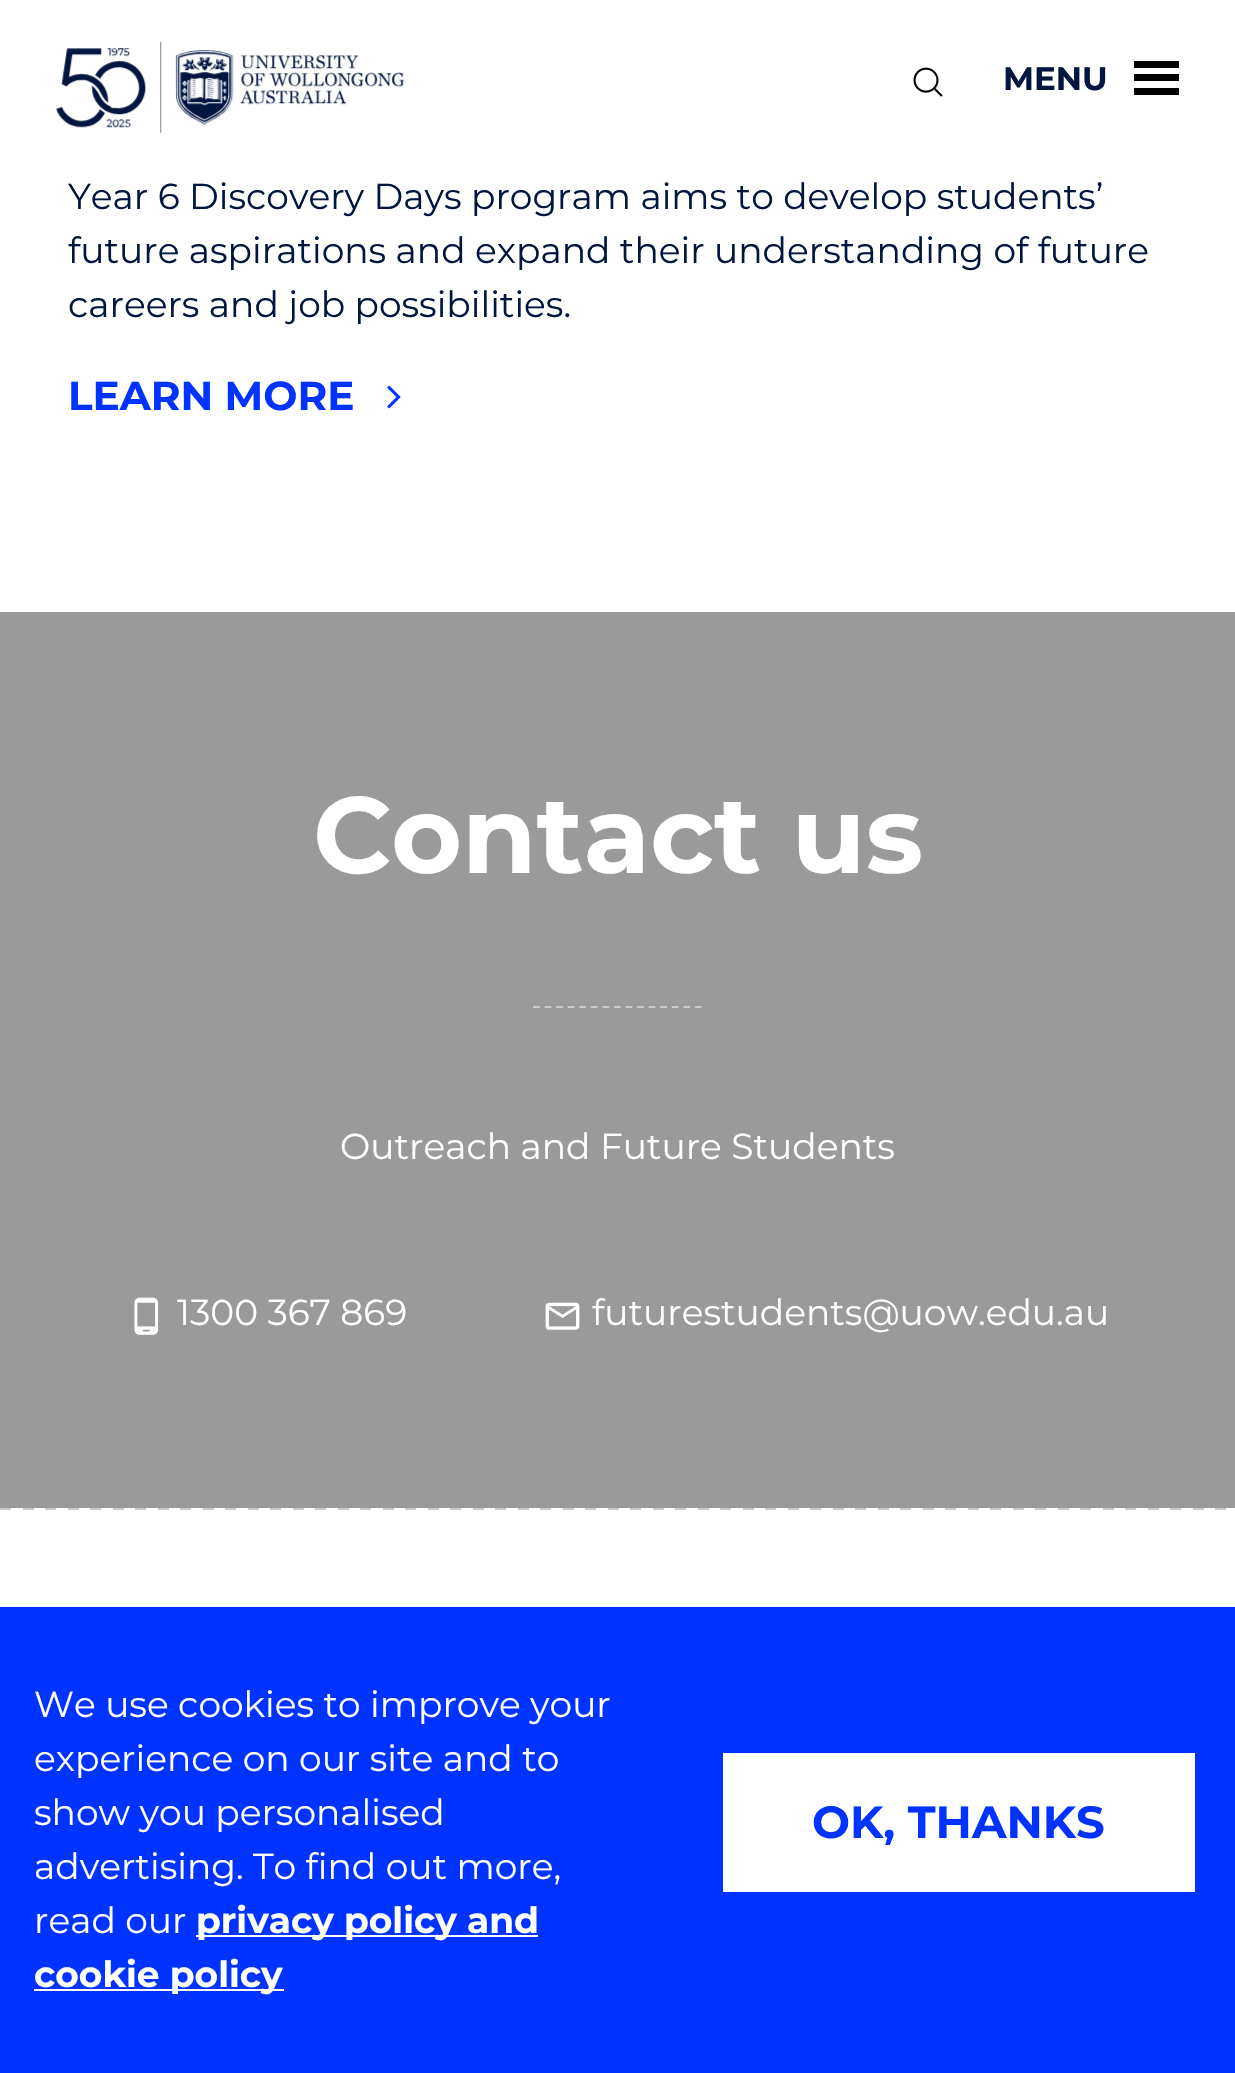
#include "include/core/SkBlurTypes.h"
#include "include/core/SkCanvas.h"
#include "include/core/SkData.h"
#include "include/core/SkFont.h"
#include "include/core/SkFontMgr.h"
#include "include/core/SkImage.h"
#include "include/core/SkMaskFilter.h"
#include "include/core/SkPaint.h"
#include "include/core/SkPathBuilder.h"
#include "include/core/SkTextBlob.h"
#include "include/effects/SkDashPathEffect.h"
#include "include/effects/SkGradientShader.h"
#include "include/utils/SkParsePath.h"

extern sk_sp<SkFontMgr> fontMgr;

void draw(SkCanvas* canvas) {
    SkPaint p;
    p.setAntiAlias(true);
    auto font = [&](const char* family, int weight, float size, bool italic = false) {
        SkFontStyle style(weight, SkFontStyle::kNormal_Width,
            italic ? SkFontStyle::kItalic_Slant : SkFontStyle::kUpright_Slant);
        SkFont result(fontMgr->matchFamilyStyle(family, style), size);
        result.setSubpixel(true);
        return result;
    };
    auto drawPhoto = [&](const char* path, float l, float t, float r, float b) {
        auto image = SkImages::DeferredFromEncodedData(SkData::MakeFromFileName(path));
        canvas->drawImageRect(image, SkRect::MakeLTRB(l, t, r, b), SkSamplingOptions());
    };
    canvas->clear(0xFFFFFFFF);
    drawPhoto("media/1.png", 56, 41, 405, 134);
    drawPhoto("media/2.png", 913, 67, 943, 97);
    p.setColor(0xFF000000);
    canvas->drawRect(SkRect::MakeLTRB(1134, 61, 1179, 68), p);
    auto font1 = font("Montserrat", 700, 32.5f);
    p.setColor(0xFF001641);
    canvas->drawString("MENU", 1003, 90, font1, p);
    p.setColor(0xFF000000);
    canvas->drawRect(SkRect::MakeLTRB(1134, 74, 1179, 81), p);
    canvas->drawRect(SkRect::MakeLTRB(1134, 88, 1179, 95), p);
    auto font2 = font("Montserrat", 400, 36);
    p.setColor(0xFF001641);
    {
        const struct { const char* s; float x, y; } items[] = {
            {"Year 6 Discovery Days program aims to develop students’", 68, 209},
            {"future aspirations and expand their understanding of future", 68, 263},
            {"careers and job possibilities.", 68, 317},
        };
        for (auto [s, x, y] : items) {
            canvas->drawString(s, x, y, font2, p);
        }
    }
    auto font3 = font("Montserrat", 700, 40.5f);
    p.setColor(0xFF0033FF);
    canvas->drawString("LEARN MORE", 68, 410, font3, p);
    drawPhoto("media/3.png", 387, 385, 401, 409);
    p.setColor(0xFF9A9A9A);
    canvas->drawRect(SkRect::MakeLTRB(0, 612, 1235, 1508), p);
    auto font4 = font("Montserrat", 700, 108);
    p.setColor(0xFFFFFFFF);
    canvas->drawString("Contact us", 313, 873, font4, p);
    p.setStyle(SkPaint::kStroke_Style);
    p.setStrokeWidth(2.2f);
    p.setColor(0xFFCACACA);
    p.setPathEffect(SkDashPathEffect::Make({{6.75f, 4.82f}}, 0));
    canvas->drawPath(SkPathBuilder().moveTo(533, 1007).lineTo(702, 1007).detach(), p);
    p.setPathEffect(nullptr);
    p.setStyle(SkPaint::kFill_Style);
    p.setColor(0xFFFFFFFF);
    canvas->drawString("Outreach and Future Students", 340, 1159, font2, p);
    drawPhoto("media/4.png", 134, 1297, 159, 1335);
    canvas->drawString("1300 367 869", 177, 1325, font2, p);
    drawPhoto("media/5.png", 545, 1302, 580, 1330);
    canvas->drawString("futurestudents@uow.edu.au", 592, 1325, font2, p);
    drawPhoto("media/6.png", 0, 1508, 1226, 1510);
    p.setColor(0xFF0033FF);
    canvas->drawRect(SkRect::MakeLTRB(0, 1607, 1235, 2073), p);
    p.setColor(0xFFFFFFFF);
    {
        const struct { const char* s; float x, y; } items[] = {
            {"We use cookies to improve your", 34, 1717},
            {"experience on our site and to", 34, 1771},
            {"show you personalised", 34, 1825},
            {"advertising. To find out more,", 34, 1879},
            {"read our", 34, 1933},
        };
        for (auto [s, x, y] : items) {
            canvas->drawString(s, x, y, font2, p);
        }
    }
    canvas->drawRect(SkRect::MakeLTRB(196, 1935, 538, 1937), p);
    auto font5 = font("Montserrat", 700, 36);
    canvas->drawString("privacy policy and", 196, 1933, font5, p);
    canvas->drawRect(SkRect::MakeLTRB(34, 1989, 284, 1991), p);
    canvas->drawString("cookie policy", 34, 1987, font5, p);
    canvas->drawRect(SkRect::MakeLTRB(723, 1753, 1195, 1892), p);
    auto font6 = font("Montserrat", 700, 45);
    p.setColor(0xFF0033FF);
    canvas->drawString("OK, THANKS", 812, 1838, font6, p);
}
